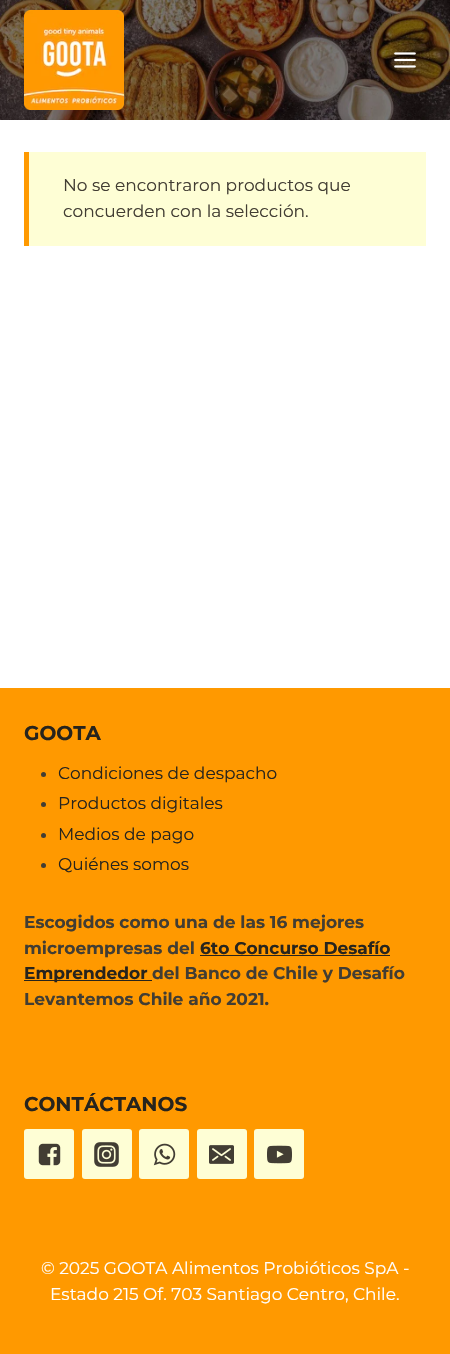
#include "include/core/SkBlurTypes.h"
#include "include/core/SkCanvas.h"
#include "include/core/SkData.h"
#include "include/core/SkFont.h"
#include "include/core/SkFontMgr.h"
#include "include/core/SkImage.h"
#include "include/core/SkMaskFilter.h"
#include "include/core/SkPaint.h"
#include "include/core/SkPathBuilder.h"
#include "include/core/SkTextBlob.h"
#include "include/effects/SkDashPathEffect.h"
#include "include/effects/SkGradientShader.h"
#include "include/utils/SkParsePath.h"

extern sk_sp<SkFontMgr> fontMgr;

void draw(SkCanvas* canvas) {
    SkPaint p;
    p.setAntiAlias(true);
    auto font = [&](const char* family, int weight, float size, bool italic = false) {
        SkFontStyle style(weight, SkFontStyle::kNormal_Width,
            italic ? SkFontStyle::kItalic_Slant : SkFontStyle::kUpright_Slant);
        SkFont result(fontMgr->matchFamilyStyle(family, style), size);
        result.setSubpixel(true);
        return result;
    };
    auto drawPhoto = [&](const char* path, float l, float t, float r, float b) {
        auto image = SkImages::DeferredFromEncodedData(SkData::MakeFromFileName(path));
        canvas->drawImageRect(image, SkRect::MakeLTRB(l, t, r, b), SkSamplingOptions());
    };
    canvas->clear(0xFFFFFFFF);
    drawPhoto("media/1.png", 0, 0, 450, 120);
    drawPhoto("media/2.png", 24, 10, 124, 110);
    drawPhoto("media/3.png", 394, 52, 416, 68);
    p.setColor(0xFFFEFED5);
    canvas->drawRect(SkRect::MakeLTRB(29, 152, 426, 246), p);
    p.setColor(0xFFFF9900);
    canvas->drawRect(SkRect::MakeLTRB(24, 152, 29, 246), p);
    auto font1 = font("Montserrat", 400, 17);
    p.setColor(0xFF423D33);
    canvas->drawString("No se encontraron productos que", 63, 191, font1, p);
    canvas->drawString("concuerden con la selección.", 63, 217, font1, p);
    p.setColor(0xFFFF9900);
    canvas->drawRect(SkRect::MakeLTRB(0, 688, 450, 1354), p);
    auto font2 = font("Montserrat", 700, 20);
    p.setColor(0xFF27241D);
    canvas->drawString("GOOTA", 24, 740, font2, p);
    p.setColor(0xFF423D33);
    canvas->drawCircle(43.5f, 774.5f, 2.5f, p);
    p.setColor(0xFF27241D);
    canvas->drawString("Condiciones de despacho", 58, 779, font1, p);
    p.setColor(0xFF423D33);
    canvas->drawCircle(43.5f, 804.5f, 2.5f, p);
    p.setColor(0xFF27241D);
    canvas->drawString("Productos digitales", 58, 809, font1, p);
    p.setColor(0xFF423D33);
    canvas->drawCircle(43.5f, 835.5f, 2.5f, p);
    p.setColor(0xFF27241D);
    canvas->drawString("Medios de pago", 58, 840, font1, p);
    p.setColor(0xFF423D33);
    canvas->drawCircle(43.5f, 865.5f, 2.5f, p);
    p.setColor(0xFF27241D);
    canvas->drawString("Quiénes somos", 58, 870, font1, p);
    auto font3 = font("Montserrat", 700, 17);
    p.setColor(0xFF423D33);
    canvas->drawString("Escogidos como una de las 16 mejores", 24, 928, font3, p);
    canvas->drawString("microempresas del", 24, 954, font3, p);
    p.setColor(0xFF27241D);
    canvas->drawString("6to Concurso Desafío", 200, 954, font3, p);
    canvas->drawRect(SkRect::MakeLTRB(200, 955, 390, 956), p);
    canvas->drawRect(SkRect::MakeLTRB(24, 980, 152, 981), p);
    canvas->drawString("Emprendedor", 24, 979, font3, p);
    p.setColor(0xFF423D33);
    canvas->drawString("del Banco de Chile y Desafío", 152, 979, font3, p);
    canvas->drawString("Levantemos Chile año 2021.", 24, 1005, font3, p);
    p.setColor(0xFF27241D);
    canvas->drawString("CONTÁCTANOS", 24, 1111, font2, p);
    p.setColor(0xFFFEFED5);
    canvas->drawRoundRect(SkRect::MakeLTRB(24, 1129, 74, 1179), 3, 3, p);
    drawPhoto("media/4.png", 38, 1143, 61, 1166);
    canvas->drawRoundRect(SkRect::MakeLTRB(82, 1129, 132, 1179), 3, 3, p);
    drawPhoto("media/5.png", 94, 1142, 119, 1167);
    canvas->drawRoundRect(SkRect::MakeLTRB(139, 1129, 189, 1179), 3, 3, p);
    drawPhoto("media/6.png", 153, 1143, 176, 1166);
    canvas->drawRoundRect(SkRect::MakeLTRB(197, 1129, 247, 1179), 3, 3, p);
    drawPhoto("media/7.png", 209, 1145, 234, 1164);
    canvas->drawRoundRect(SkRect::MakeLTRB(254, 1129, 304, 1179), 3, 3, p);
    drawPhoto("media/8.png", 267, 1145, 292, 1164);
    p.setColor(0xFFFFFFFF);
    canvas->drawString("© 2025 GOOTA Alimentos Probióticos SpA -", 41, 1274, font1, p);
    canvas->drawString("Estado 215 Of. 703 Santiago Centro, Chile.", 50, 1300, font1, p);
}
